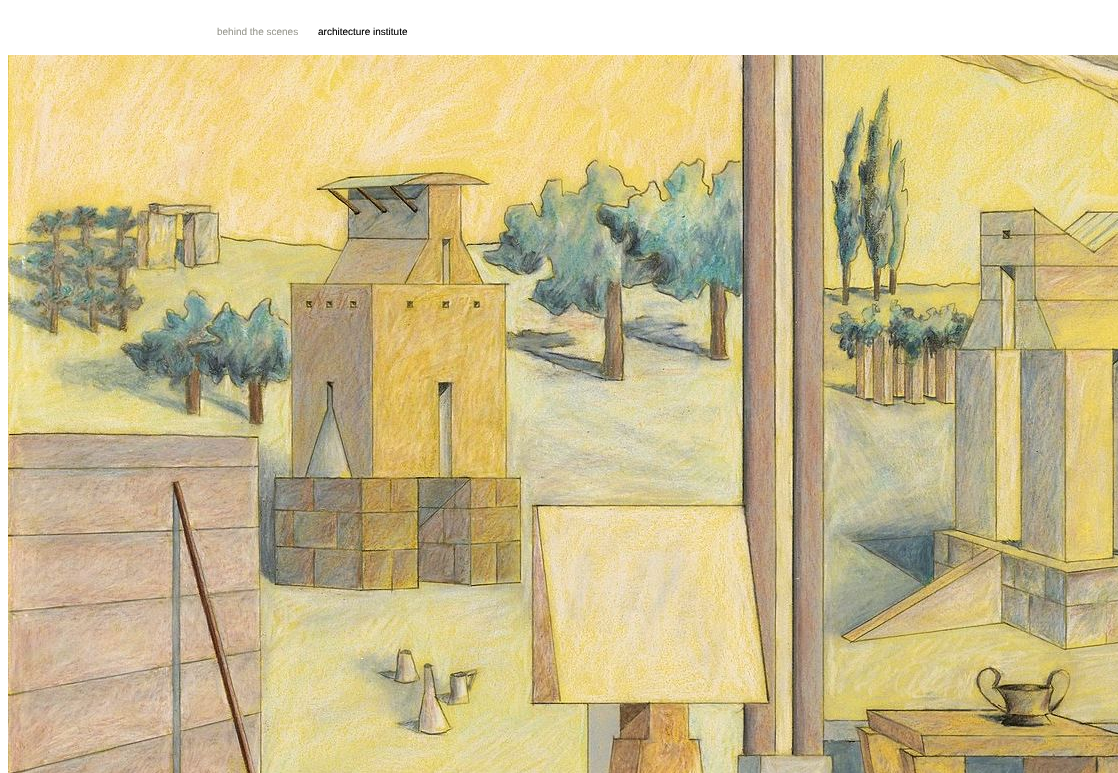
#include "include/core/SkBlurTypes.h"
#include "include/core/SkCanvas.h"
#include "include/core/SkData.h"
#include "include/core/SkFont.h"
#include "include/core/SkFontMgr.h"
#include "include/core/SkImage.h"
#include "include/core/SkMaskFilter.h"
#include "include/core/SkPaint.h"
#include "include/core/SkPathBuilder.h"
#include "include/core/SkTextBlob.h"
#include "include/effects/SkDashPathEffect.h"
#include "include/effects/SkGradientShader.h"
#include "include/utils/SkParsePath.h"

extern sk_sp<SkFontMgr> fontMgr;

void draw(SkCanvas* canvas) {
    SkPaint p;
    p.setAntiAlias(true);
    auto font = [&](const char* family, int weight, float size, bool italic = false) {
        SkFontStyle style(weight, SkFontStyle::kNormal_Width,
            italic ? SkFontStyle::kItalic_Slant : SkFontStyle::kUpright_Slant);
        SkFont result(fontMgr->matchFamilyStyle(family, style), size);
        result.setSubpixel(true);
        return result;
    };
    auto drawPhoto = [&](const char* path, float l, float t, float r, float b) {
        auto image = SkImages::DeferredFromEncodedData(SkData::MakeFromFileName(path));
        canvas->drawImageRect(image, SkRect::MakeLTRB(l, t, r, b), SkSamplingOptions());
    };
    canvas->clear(0xFFFFFFFF);
    auto font1 = font("Liberation Sans", 400, 10);
    p.setColor(0xFF999990);
    canvas->drawString("behind the scenes", 217, 35, font1, p);
    p.setColor(0xFF000000);
    canvas->drawString("architecture institute", 318, 35, font1, p);
    drawPhoto("media/1.png", 8, 55, 1118, 773);
}
